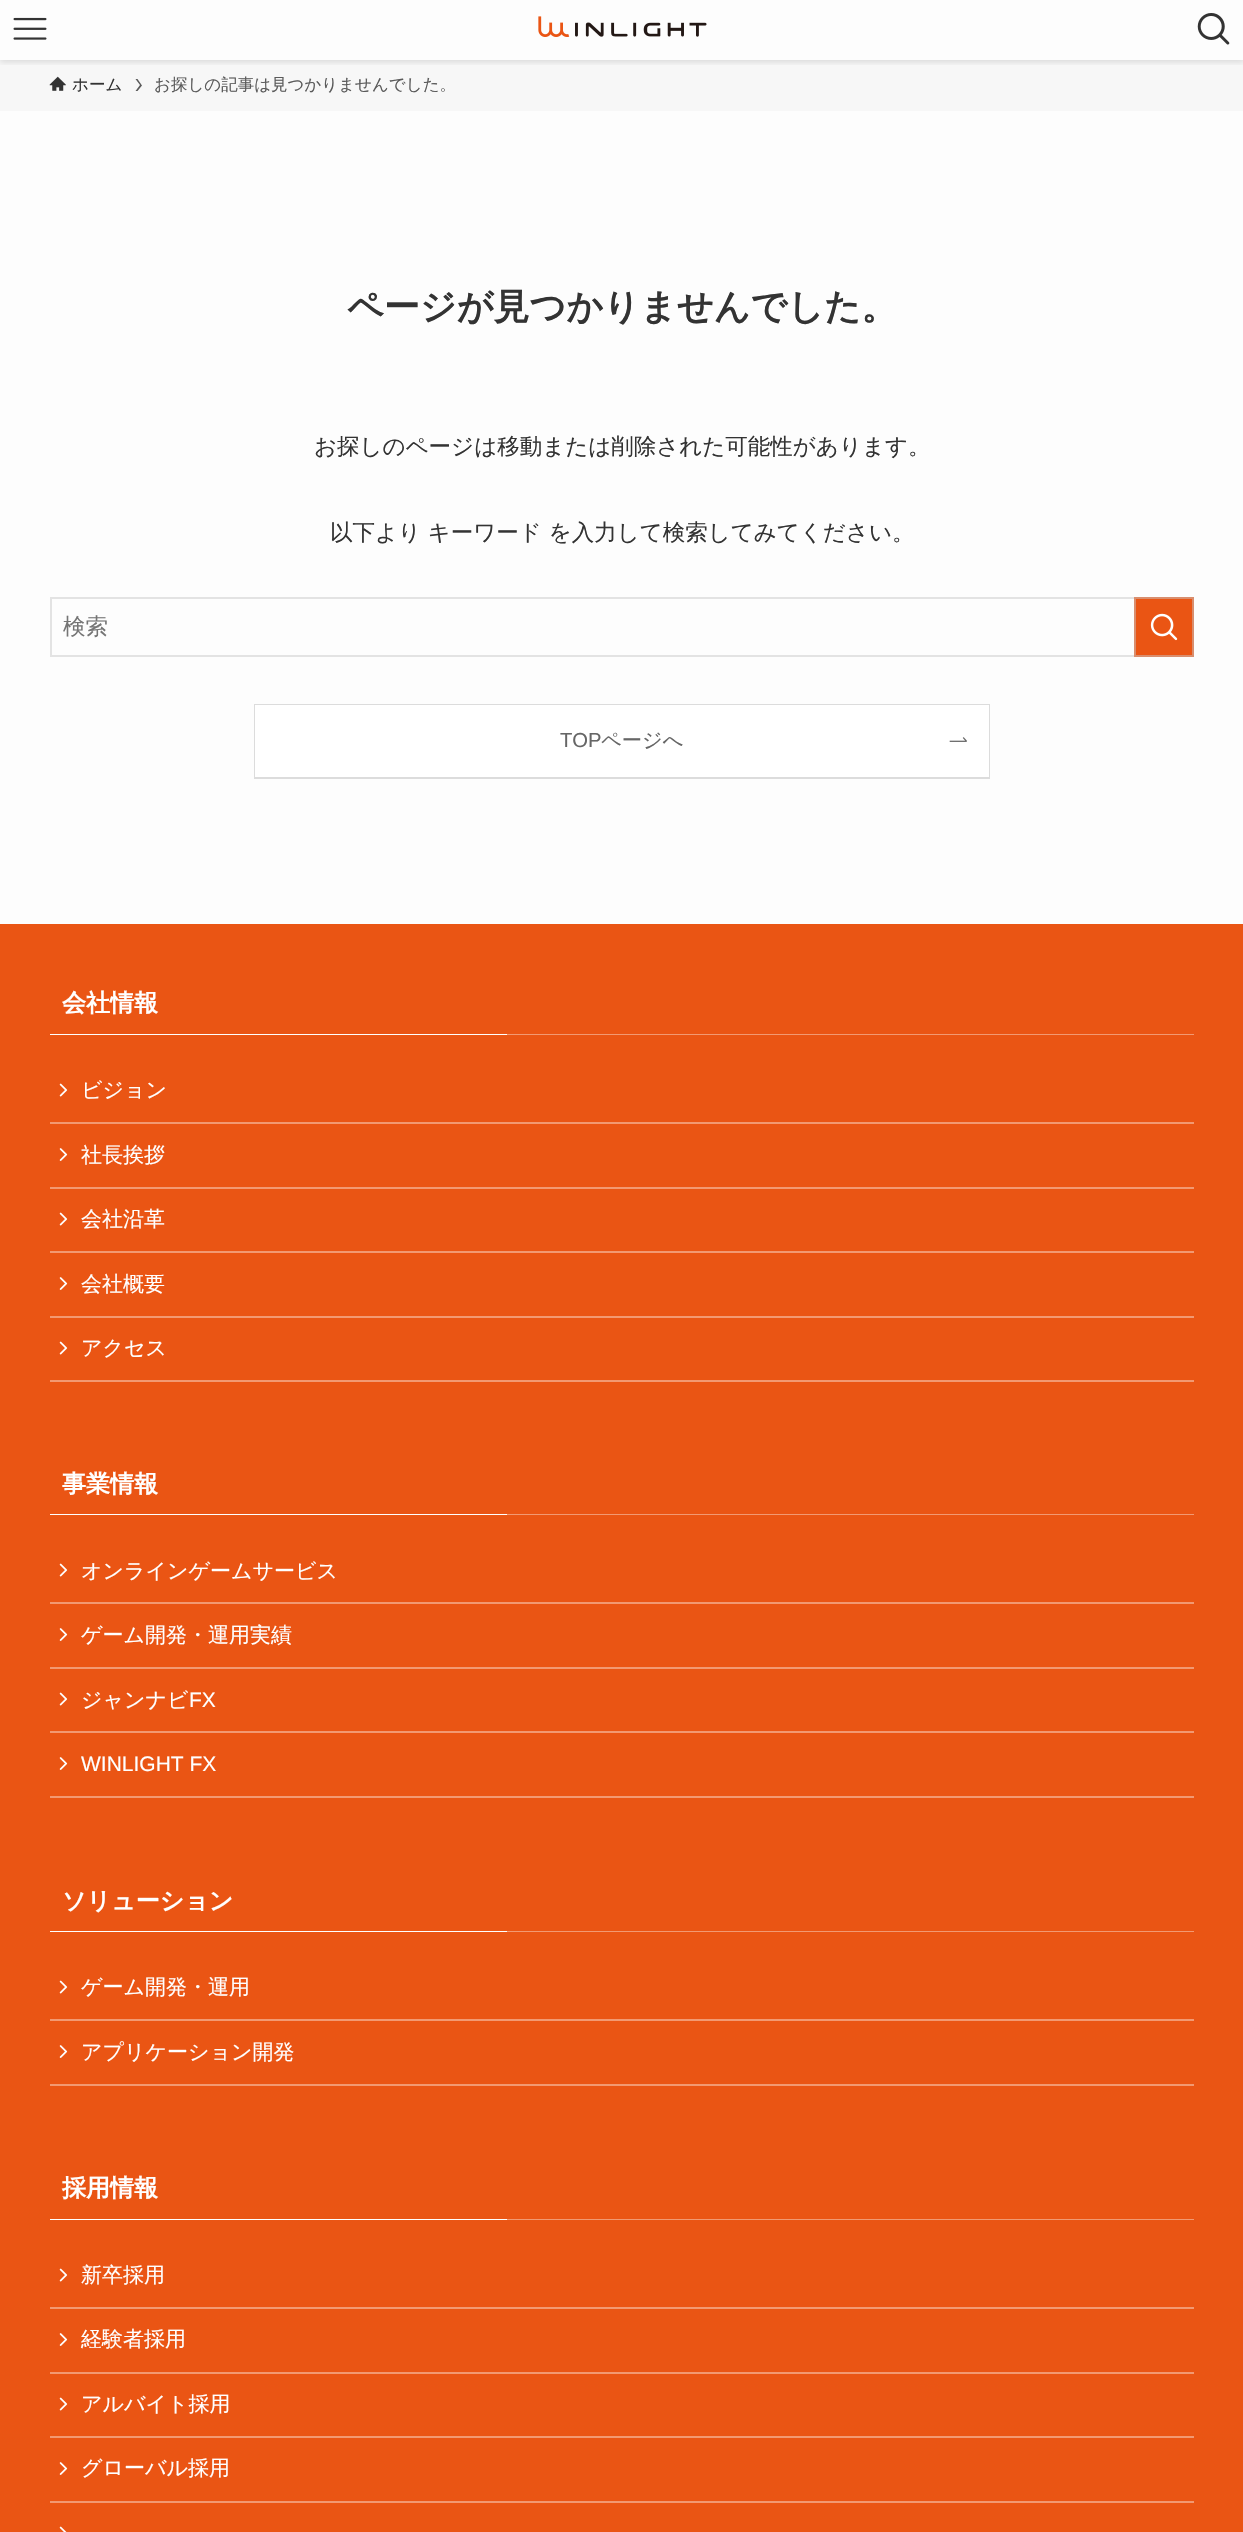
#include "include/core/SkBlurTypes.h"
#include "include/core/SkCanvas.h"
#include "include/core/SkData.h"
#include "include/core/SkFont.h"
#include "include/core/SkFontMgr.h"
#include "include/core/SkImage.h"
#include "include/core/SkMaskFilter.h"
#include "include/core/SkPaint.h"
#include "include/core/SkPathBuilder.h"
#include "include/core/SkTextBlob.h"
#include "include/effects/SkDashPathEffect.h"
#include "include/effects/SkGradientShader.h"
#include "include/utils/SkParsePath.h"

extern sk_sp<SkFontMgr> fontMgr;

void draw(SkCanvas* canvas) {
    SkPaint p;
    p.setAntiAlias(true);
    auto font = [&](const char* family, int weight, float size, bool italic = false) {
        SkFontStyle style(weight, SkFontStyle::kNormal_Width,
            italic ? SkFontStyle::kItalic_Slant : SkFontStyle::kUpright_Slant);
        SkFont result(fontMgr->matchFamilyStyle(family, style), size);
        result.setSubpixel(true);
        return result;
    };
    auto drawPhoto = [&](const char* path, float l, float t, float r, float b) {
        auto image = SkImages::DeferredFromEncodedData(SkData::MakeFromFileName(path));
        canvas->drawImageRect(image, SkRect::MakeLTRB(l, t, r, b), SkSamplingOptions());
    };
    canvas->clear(0xFFFDFDFD);
    p.setColor(0xFFF7F7F7);
    canvas->drawRect(SkRect::MakeLTRB(0, 60, 1243, 111), p);
    canvas->save();
    canvas->clipRect(SkRect::MakeLTRB(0, 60, 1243, 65));
    p.setColor(0x1F000000);
    p.setMaskFilter(SkMaskFilter::MakeBlur(kNormal_SkBlurStyle, 3));
    canvas->drawRect(SkRect::MakeLTRB(0, 2, 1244, 62), p);
    p.setMaskFilter(nullptr);
    canvas->restore();
    drawPhoto("media/1.png", 13, 17, 47, 40);
    drawPhoto("media/2.png", 538, 16, 707, 37);
    drawPhoto("media/3.png", 1197, 13, 1230, 45);
    drawPhoto("media/4.png", 49, 76, 66, 91);
    auto font1 = font("WenQuanYi Zen Hei", 500, 16.5f);
    p.setColor(0xFF333333);
    canvas->drawString("ホーム", 72, 90, font1, p);
    p.setColor(0xFF5A5A5A);
    canvas->drawPath(SkPathBuilder().moveTo(137.5f, 79).lineTo(135.5f, 79).lineTo(140, 85).lineTo(135.5f, 91).lineTo(137.5f, 91).lineTo(142, 85.5f).close().detach(), p);
    canvas->drawString("お探しの記事は見つかりませんでした。", 154, 90, font1, p);
    auto font2 = font("WenQuanYi Zen Hei", 700, 36);
    p.setColor(0xFF333333);
    canvas->drawString("ページが見つかりませんでした。", 347, 319, font2, p);
    auto font3 = font("WenQuanYi Zen Hei", 500, 22.5f);
    canvas->drawString("お探しのページは移動または削除された可能性があります。", 314, 454, font3, p);
    canvas->drawString("以下より キーワード を入力して検索してみてください。", 330, 540, font3, p);
    p.setStyle(SkPaint::kStroke_Style);
    p.setStrokeWidth(2);
    p.setColor(0xFFE3E3E3);
    canvas->drawRect(SkRect::MakeLTRB(51, 598, 1193, 656), p);
    p.setStyle(SkPaint::kFill_Style);
    p.setColor(0xFF757575);
    canvas->drawString("検索", 63, 634, font3, p);
    p.setColor(0xFFEA5514);
    canvas->drawRect(SkRect::MakeLTRB(1135, 598, 1193, 656), p);
    p.setStyle(SkPaint::kStroke_Style);
    p.setColor(0xFFD98E6E);
    canvas->drawRect(SkRect::MakeLTRB(1135, 598, 1193, 656), p);
    drawPhoto("media/5.png", 1150, 613, 1178, 641);
    p.setColor(0xFFDCDCDC);
    canvas->drawRect(SkRect::MakeLTRB(255, 705, 989, 778), p);
    p.setStyle(SkPaint::kFill_Style);
    p.setColor(0xFFFFFFFF);
    canvas->drawRect(SkRect::MakeLTRB(255, 705, 989, 777), p);
    auto font4 = font("Liberation Sans", 400, 20.25f);
    p.setColor(0xFF666666);
    canvas->drawString("TOP", 560, 747, font4, p);
    auto font5 = font("WenQuanYi Zen Hei", 500, 20.25f);
    canvas->drawString("ページへ", 601, 747, font5, p);
    drawPhoto("media/6.png", 949, 737, 967, 742);
    p.setColor(0xFFEA5514);
    canvas->drawRect(SkRect::MakeLTRB(0, 924, 1243, 2532), p);
    auto font6 = font("WenQuanYi Zen Hei", 700, 24);
    p.setColor(0xFFFFFFFF);
    canvas->drawString("会社情報", 62, 1011, font6, p);
    {
        const struct { float l, t, r, b; SkColor color; } items[] = {
            {50, 1034, 507, 1035, 0xFFFFFFFF},
            {507, 1034, 1194, 1035, 0xFFF29972},
            {50, 1122, 1194, 1124, 0xFFF29972},
        };
        for (auto [l, t, r, b, color] : items) {
            p.setColor(color);
            canvas->drawRect(SkRect::MakeLTRB(l, t, r, b), p);
        }
    }
    drawPhoto("media/7.png", 59, 1083, 68, 1097);
    auto font7 = font("WenQuanYi Zen Hei", 500, 21);
    p.setColor(0xFFFFFFFF);
    canvas->drawString("ビジョン", 81, 1097, font7, p);
    p.setColor(0xFFF29972);
    canvas->drawRect(SkRect::MakeLTRB(50, 1187, 1194, 1189), p);
    drawPhoto("media/8.png", 59, 1148, 68, 1161);
    p.setColor(0xFFFFFFFF);
    canvas->drawString("社長挨拶", 81, 1162, font7, p);
    p.setColor(0xFFF29972);
    canvas->drawRect(SkRect::MakeLTRB(50, 1251, 1194, 1253), p);
    drawPhoto("media/7.png", 59, 1212, 68, 1226);
    p.setColor(0xFFFFFFFF);
    canvas->drawString("会社沿革", 81, 1226, font7, p);
    p.setColor(0xFFF29972);
    canvas->drawRect(SkRect::MakeLTRB(50, 1316, 1194, 1318), p);
    drawPhoto("media/8.png", 59, 1277, 68, 1290);
    p.setColor(0xFFFFFFFF);
    canvas->drawString("会社概要", 81, 1291, font7, p);
    p.setColor(0xFFF29972);
    canvas->drawRect(SkRect::MakeLTRB(50, 1380, 1194, 1382), p);
    drawPhoto("media/7.png", 59, 1341, 68, 1355);
    p.setColor(0xFFFFFFFF);
    canvas->drawString("アクセス", 81, 1355, font7, p);
    canvas->drawString("事業情報", 62, 1492, font6, p);
    {
        const struct { float l, t, r, b; SkColor color; } items[] = {
            {50, 1514, 507, 1515, 0xFFFFFFFF},
            {507, 1514, 1194, 1515, 0xFFF29972},
            {50, 1602, 1194, 1604, 0xFFF29972},
        };
        for (auto [l, t, r, b, color] : items) {
            p.setColor(color);
            canvas->drawRect(SkRect::MakeLTRB(l, t, r, b), p);
        }
    }
    drawPhoto("media/7.png", 59, 1563, 68, 1577);
    p.setColor(0xFFFFFFFF);
    canvas->drawString("オンラインゲームサービス", 81, 1578, font7, p);
    p.setColor(0xFFF29972);
    canvas->drawRect(SkRect::MakeLTRB(50, 1667, 1194, 1669), p);
    drawPhoto("media/8.png", 59, 1628, 68, 1641);
    p.setColor(0xFFFFFFFF);
    canvas->drawString("ゲーム開発・運用実績", 81, 1642, font7, p);
    p.setColor(0xFFF29972);
    canvas->drawRect(SkRect::MakeLTRB(50, 1731, 1194, 1733), p);
    drawPhoto("media/7.png", 59, 1692, 68, 1706);
    p.setColor(0xFFFFFFFF);
    canvas->drawString("ジャンナビ", 81, 1707, font7, p);
    auto font8 = font("Liberation Sans", 400, 21);
    canvas->drawString("FX", 189, 1707, font8, p);
    p.setColor(0xFFF29972);
    canvas->drawRect(SkRect::MakeLTRB(50, 1796, 1194, 1798), p);
    drawPhoto("media/8.png", 59, 1757, 68, 1770);
    p.setColor(0xFFFFFFFF);
    canvas->drawString("WINLIGHT FX", 81, 1771, font8, p);
    canvas->drawString("ソリューション", 62, 1909, font6, p);
    {
        const struct { float l, t, r, b; SkColor color; } items[] = {
            {50, 1931, 507, 1932, 0xFFFFFFFF},
            {507, 1931, 1194, 1932, 0xFFF29972},
            {50, 2019, 1194, 2021, 0xFFF29972},
        };
        for (auto [l, t, r, b, color] : items) {
            p.setColor(color);
            canvas->drawRect(SkRect::MakeLTRB(l, t, r, b), p);
        }
    }
    drawPhoto("media/7.png", 59, 1980, 68, 1994);
    p.setColor(0xFFFFFFFF);
    canvas->drawString("ゲーム開発・運用", 81, 1994, font7, p);
    p.setColor(0xFFF29972);
    canvas->drawRect(SkRect::MakeLTRB(50, 2084, 1194, 2086), p);
    drawPhoto("media/8.png", 59, 2045, 68, 2058);
    p.setColor(0xFFFFFFFF);
    canvas->drawString("アプリケーション開発", 81, 2059, font7, p);
    canvas->drawString("採用情報", 62, 2196, font6, p);
    {
        const struct { float l, t, r, b; SkColor color; } items[] = {
            {50, 2219, 507, 2220, 0xFFFFFFFF},
            {507, 2219, 1194, 2220, 0xFFF29972},
            {50, 2307, 1194, 2309, 0xFFF29972},
        };
        for (auto [l, t, r, b, color] : items) {
            p.setColor(color);
            canvas->drawRect(SkRect::MakeLTRB(l, t, r, b), p);
        }
    }
    drawPhoto("media/7.png", 59, 2268, 68, 2282);
    p.setColor(0xFFFFFFFF);
    canvas->drawString("新卒採用", 81, 2282, font7, p);
    p.setColor(0xFFF29972);
    canvas->drawRect(SkRect::MakeLTRB(50, 2372, 1194, 2374), p);
    drawPhoto("media/8.png", 59, 2333, 68, 2346);
    p.setColor(0xFFFFFFFF);
    canvas->drawString("経験者採用", 81, 2346, font7, p);
    p.setColor(0xFFF29972);
    canvas->drawRect(SkRect::MakeLTRB(50, 2436, 1194, 2438), p);
    drawPhoto("media/7.png", 59, 2397, 68, 2411);
    p.setColor(0xFFFFFFFF);
    canvas->drawString("アルバイト採用", 81, 2411, font7, p);
    p.setColor(0xFFF29972);
    canvas->drawRect(SkRect::MakeLTRB(50, 2501, 1194, 2503), p);
    drawPhoto("media/8.png", 59, 2462, 68, 2475);
    p.setColor(0xFFFFFFFF);
    canvas->drawString("グローバル採用", 81, 2475, font7, p);
    drawPhoto("media/9.png", 59, 2526, 67, 2532);
}
